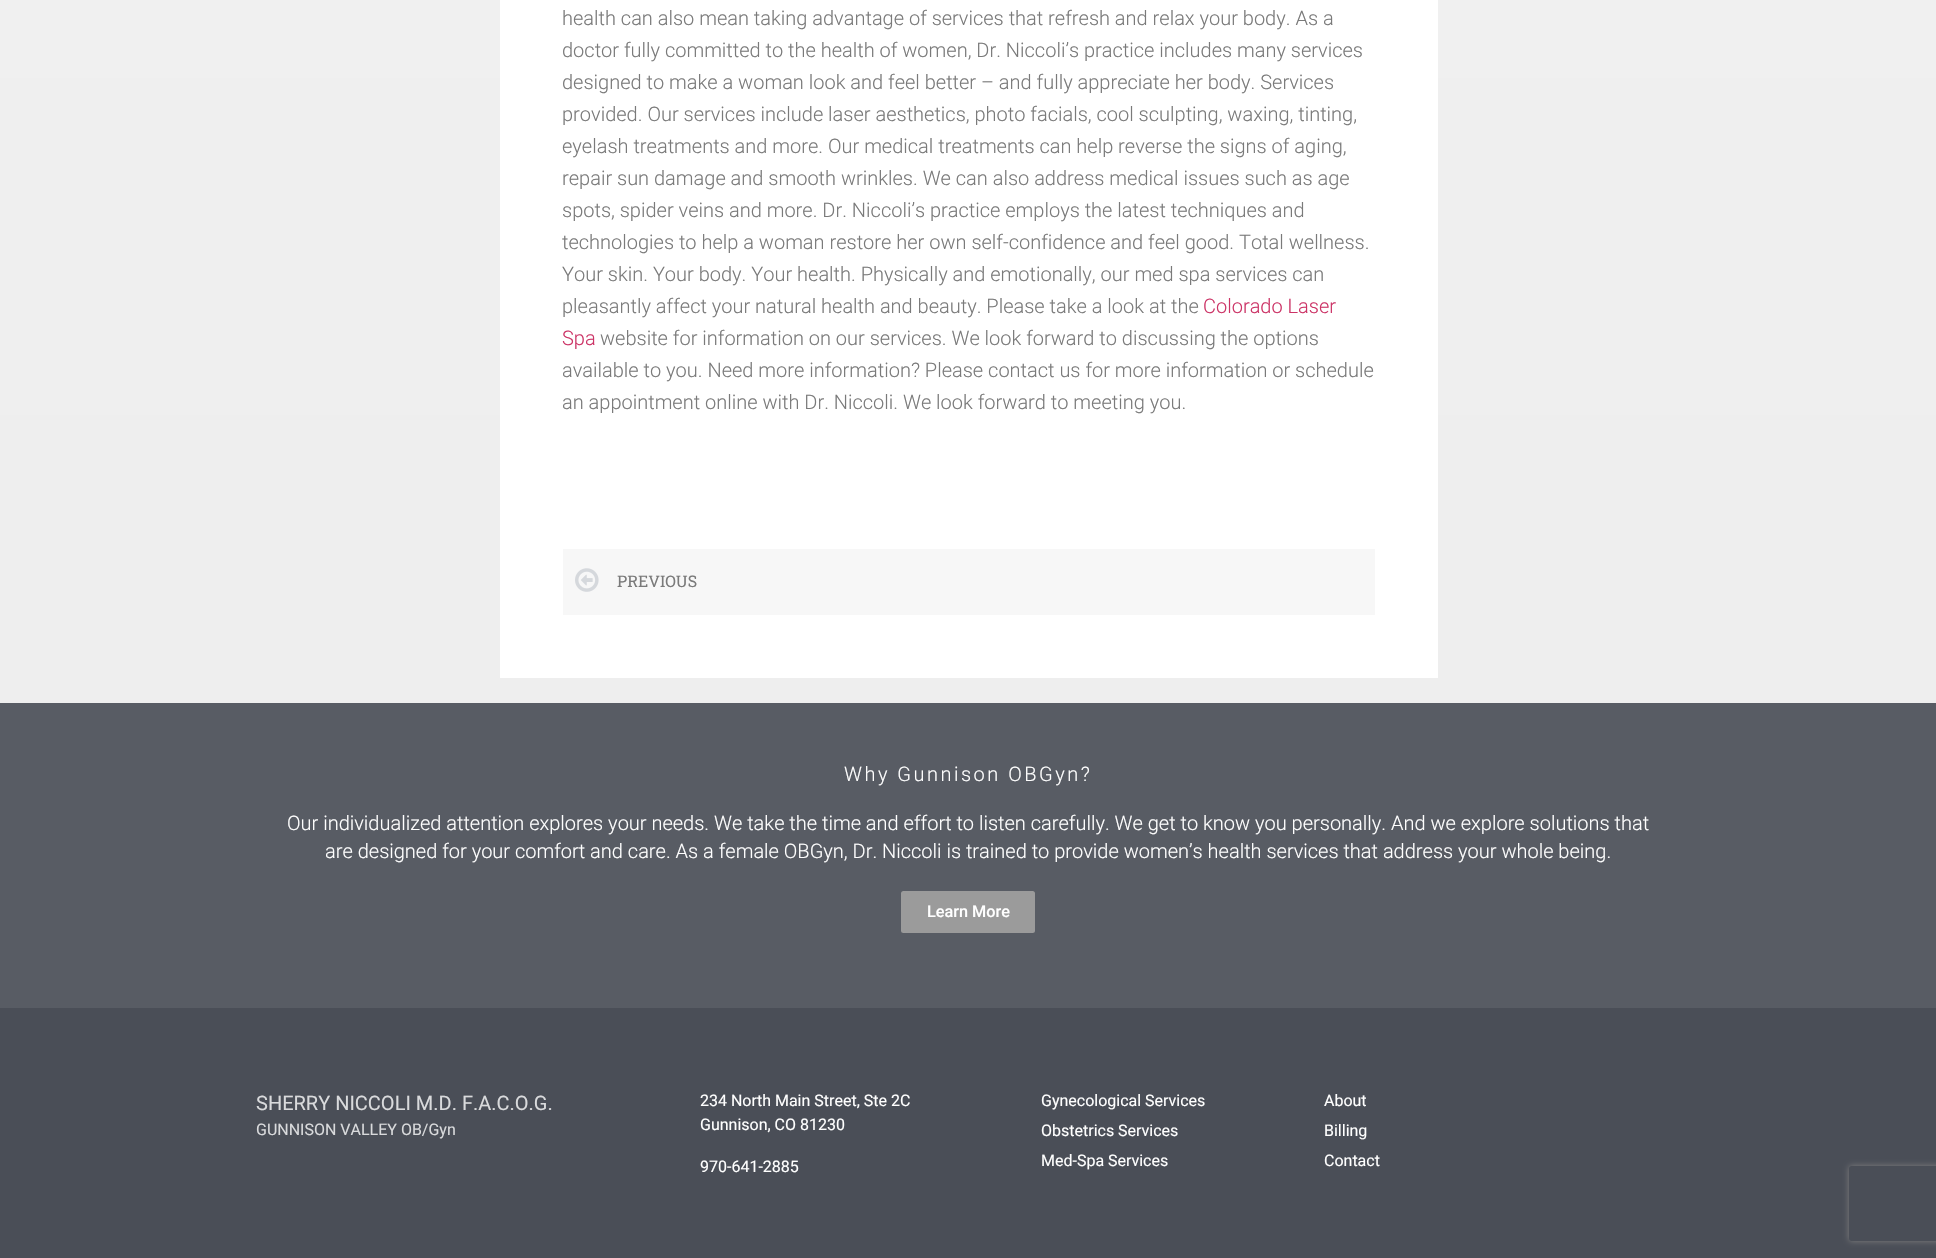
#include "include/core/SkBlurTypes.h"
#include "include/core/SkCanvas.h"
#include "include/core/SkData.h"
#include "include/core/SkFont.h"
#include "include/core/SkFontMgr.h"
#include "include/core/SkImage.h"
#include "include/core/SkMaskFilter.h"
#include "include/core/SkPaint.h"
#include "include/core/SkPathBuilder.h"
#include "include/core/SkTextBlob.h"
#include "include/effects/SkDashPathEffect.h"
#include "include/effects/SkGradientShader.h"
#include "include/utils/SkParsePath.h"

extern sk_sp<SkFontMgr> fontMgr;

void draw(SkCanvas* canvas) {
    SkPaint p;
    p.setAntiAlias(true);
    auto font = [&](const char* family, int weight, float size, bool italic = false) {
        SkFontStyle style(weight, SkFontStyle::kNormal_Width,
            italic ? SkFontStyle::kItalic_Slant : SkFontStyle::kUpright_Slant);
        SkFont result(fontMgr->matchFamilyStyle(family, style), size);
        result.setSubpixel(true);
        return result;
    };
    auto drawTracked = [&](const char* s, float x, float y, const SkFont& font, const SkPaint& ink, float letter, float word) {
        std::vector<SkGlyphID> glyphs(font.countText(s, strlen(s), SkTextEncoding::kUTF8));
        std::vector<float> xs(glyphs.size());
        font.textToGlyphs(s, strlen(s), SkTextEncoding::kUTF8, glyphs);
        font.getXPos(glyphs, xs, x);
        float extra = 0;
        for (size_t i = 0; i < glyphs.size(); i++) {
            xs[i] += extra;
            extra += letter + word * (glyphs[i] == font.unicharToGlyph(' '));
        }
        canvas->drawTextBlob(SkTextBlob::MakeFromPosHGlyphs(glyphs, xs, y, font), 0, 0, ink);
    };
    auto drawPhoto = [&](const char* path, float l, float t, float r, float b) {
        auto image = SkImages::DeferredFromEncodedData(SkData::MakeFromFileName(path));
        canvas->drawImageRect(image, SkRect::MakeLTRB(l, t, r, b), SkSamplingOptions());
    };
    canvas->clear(0xFFFFFFFF);
    {
        const SkColor colors[] = {0xFFF2F2F2, 0xFFECECEC};
        const float stops[] = {0, 1};
        const SkPoint ends[] = {{968, -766}, {968, 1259}};
        p.setShader(SkGradientShader::MakeLinear(ends, colors, stops, 2, SkTileMode::kClamp));
        p.setAlpha(255);
    }
    canvas->drawRect(SkRect::MakeLTRB(0, 0, 1936, 703), p);
    p.setShader(nullptr);
    p.setColor(0xFFFFFFFF);
    canvas->drawRect(SkRect::MakeLTRB(500, 0, 1438, 678), p);
    auto font1 = font("Roboto", 300, 20);
    p.setColor(0xFF7A7A7A);
    {
        const struct { const char* s; float x, y; } items[] = {
            {"health can also mean taking advantage of services that refresh and relax your body. As a", 562, 25},
            {"doctor fully committed to the health of women, Dr. Niccoli’s practice includes many services", 562, 57},
            {"designed to make a woman look and feel better – and fully appreciate her body. Services", 562, 89},
            {"provided. Our services include laser aesthetics, photo facials, cool sculpting, waxing, tinting,", 562, 121},
            {"eyelash treatments and more. Our medical treatments can help reverse the signs of aging,", 562, 153},
            {"repair sun damage and smooth wrinkles. We can also address medical issues such as age", 562, 185},
            {"spots, spider veins and more. Dr. Niccoli’s practice employs the latest techniques and", 562, 217},
            {"technologies to help a woman restore her own self-confidence and feel good. Total wellness.", 562, 249},
            {"Your skin. Your body. Your health. Physically and emotionally, our med spa services can", 562, 281},
            {"pleasantly affect your natural health and beauty. Please take a look at the", 562, 313},
        };
        for (auto [s, x, y] : items) {
            canvas->drawString(s, x, y, font1, p);
        }
    }
    p.setColor(0xFFCC3366);
    canvas->drawString("Colorado Laser", 1203, 313, font1, p);
    canvas->drawString("Spa", 562, 345, font1, p);
    p.setColor(0xFF7A7A7A);
    {
        const struct { const char* s; float x, y; } items[] = {
            {"website for information on our services. We look forward to discussing the options", 600, 345},
            {"available to you. Need more information? Please contact us for more information or schedule", 562, 377},
            {"an appointment online with Dr. Niccoli. We look forward to meeting you.", 562, 409},
        };
        for (auto [s, x, y] : items) {
            canvas->drawString(s, x, y, font1, p);
        }
    }
    p.setColor(0xFFF7F7F7);
    canvas->drawRect(SkRect::MakeLTRB(563, 549, 1375, 615), p);
    drawPhoto("media/1.png", 575, 568, 599, 592);
    auto font2 = font("Roboto Slab", 400, 16);
    p.setColor(0xFF7A7A7A);
    canvas->drawString("PREVIOUS", 617, 587, font2, p);
    p.setColor(0xFF585C64);
    canvas->drawRect(SkRect::MakeLTRB(0, 703, 1936, 1008), p);
    p.setColor(0xFFFFFFFF);
    drawTracked("Why Gunnison OBGyn?", 844, 781, font1, p, 2.5f, 0);
    canvas->drawString("Our individualized attention explores your needs. We take the time and effort to listen carefully. We get to know you personally. And we explore solutions that", 287, 830, font1, p);
    canvas->drawString("are designed for your comfort and care. As a female OBGyn, Dr. Niccoli is trained to provide women’s health services that address your whole being.", 325, 858, font1, p);
    p.setColor(0xFF9B9B9B);
    canvas->drawRoundRect(SkRect::MakeLTRB(901, 891, 1035, 933), 2.5f, 2.5f, p);
    auto font3 = font("Roboto", 500, 16.25f);
    p.setColor(0xFFFFFFFF);
    canvas->drawString("Learn More", 927, 917, font3, p);
    p.setColor(0xFF4A4E57);
    canvas->drawRect(SkRect::MakeLTRB(0, 1008, 1936, 1258), p);
    auto font4 = font("Roboto", 400, 20);
    p.setColor(0xFFD9DADC);
    canvas->drawString("SHERRY NICCOLI M.D. F.A.C.O.G.", 256, 1110, font4, p);
    auto font5 = font("Roboto", 400, 16);
    canvas->drawString("GUNNISON VALLEY OB/Gyn", 256, 1135, font5, p);
    p.setColor(0xFFFFFFFF);
    {
        const struct { const char* s; float x, y; } items[] = {
            {"234 North Main Street, Ste 2C", 700, 1106},
            {"Gunnison, CO 81230", 700, 1130},
            {"970-641-2885", 700, 1172},
            {"Gynecological Services", 1041, 1106},
            {"Obstetrics Services", 1041, 1136},
            {"Med-Spa Services", 1041, 1166},
            {"About", 1324, 1106},
            {"Billing", 1324, 1136},
            {"Contact", 1324, 1166},
        };
        for (auto [s, x, y] : items) {
            canvas->drawString(s, x, y, font5, p);
        }
    }
    canvas->save();
    canvas->clipPath(SkPathBuilder(SkPathFillType::kEvenOdd).moveTo(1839, 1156).lineTo(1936, 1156).lineTo(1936, 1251).lineTo(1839, 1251).close().moveTo(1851.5f, 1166).lineTo(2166.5f, 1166).cubicTo(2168, 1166, 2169, 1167, 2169, 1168.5f).lineTo(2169, 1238.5f).cubicTo(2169, 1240, 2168, 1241, 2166.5f, 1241).lineTo(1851.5f, 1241).cubicTo(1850, 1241, 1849, 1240, 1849, 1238.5f).lineTo(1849, 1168.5f).cubicTo(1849, 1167, 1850, 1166, 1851.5f, 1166).close().detach(), true);
    p.setColor(0xFF808080);
    p.setMaskFilter(SkMaskFilter::MakeBlur(kNormal_SkBlurStyle, 3));
    canvas->drawRoundRect(SkRect::MakeLTRB(1849, 1166, 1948, 1241), 2.5f, 2.5f, p);
    p.setMaskFilter(nullptr);
    canvas->restore();
}
